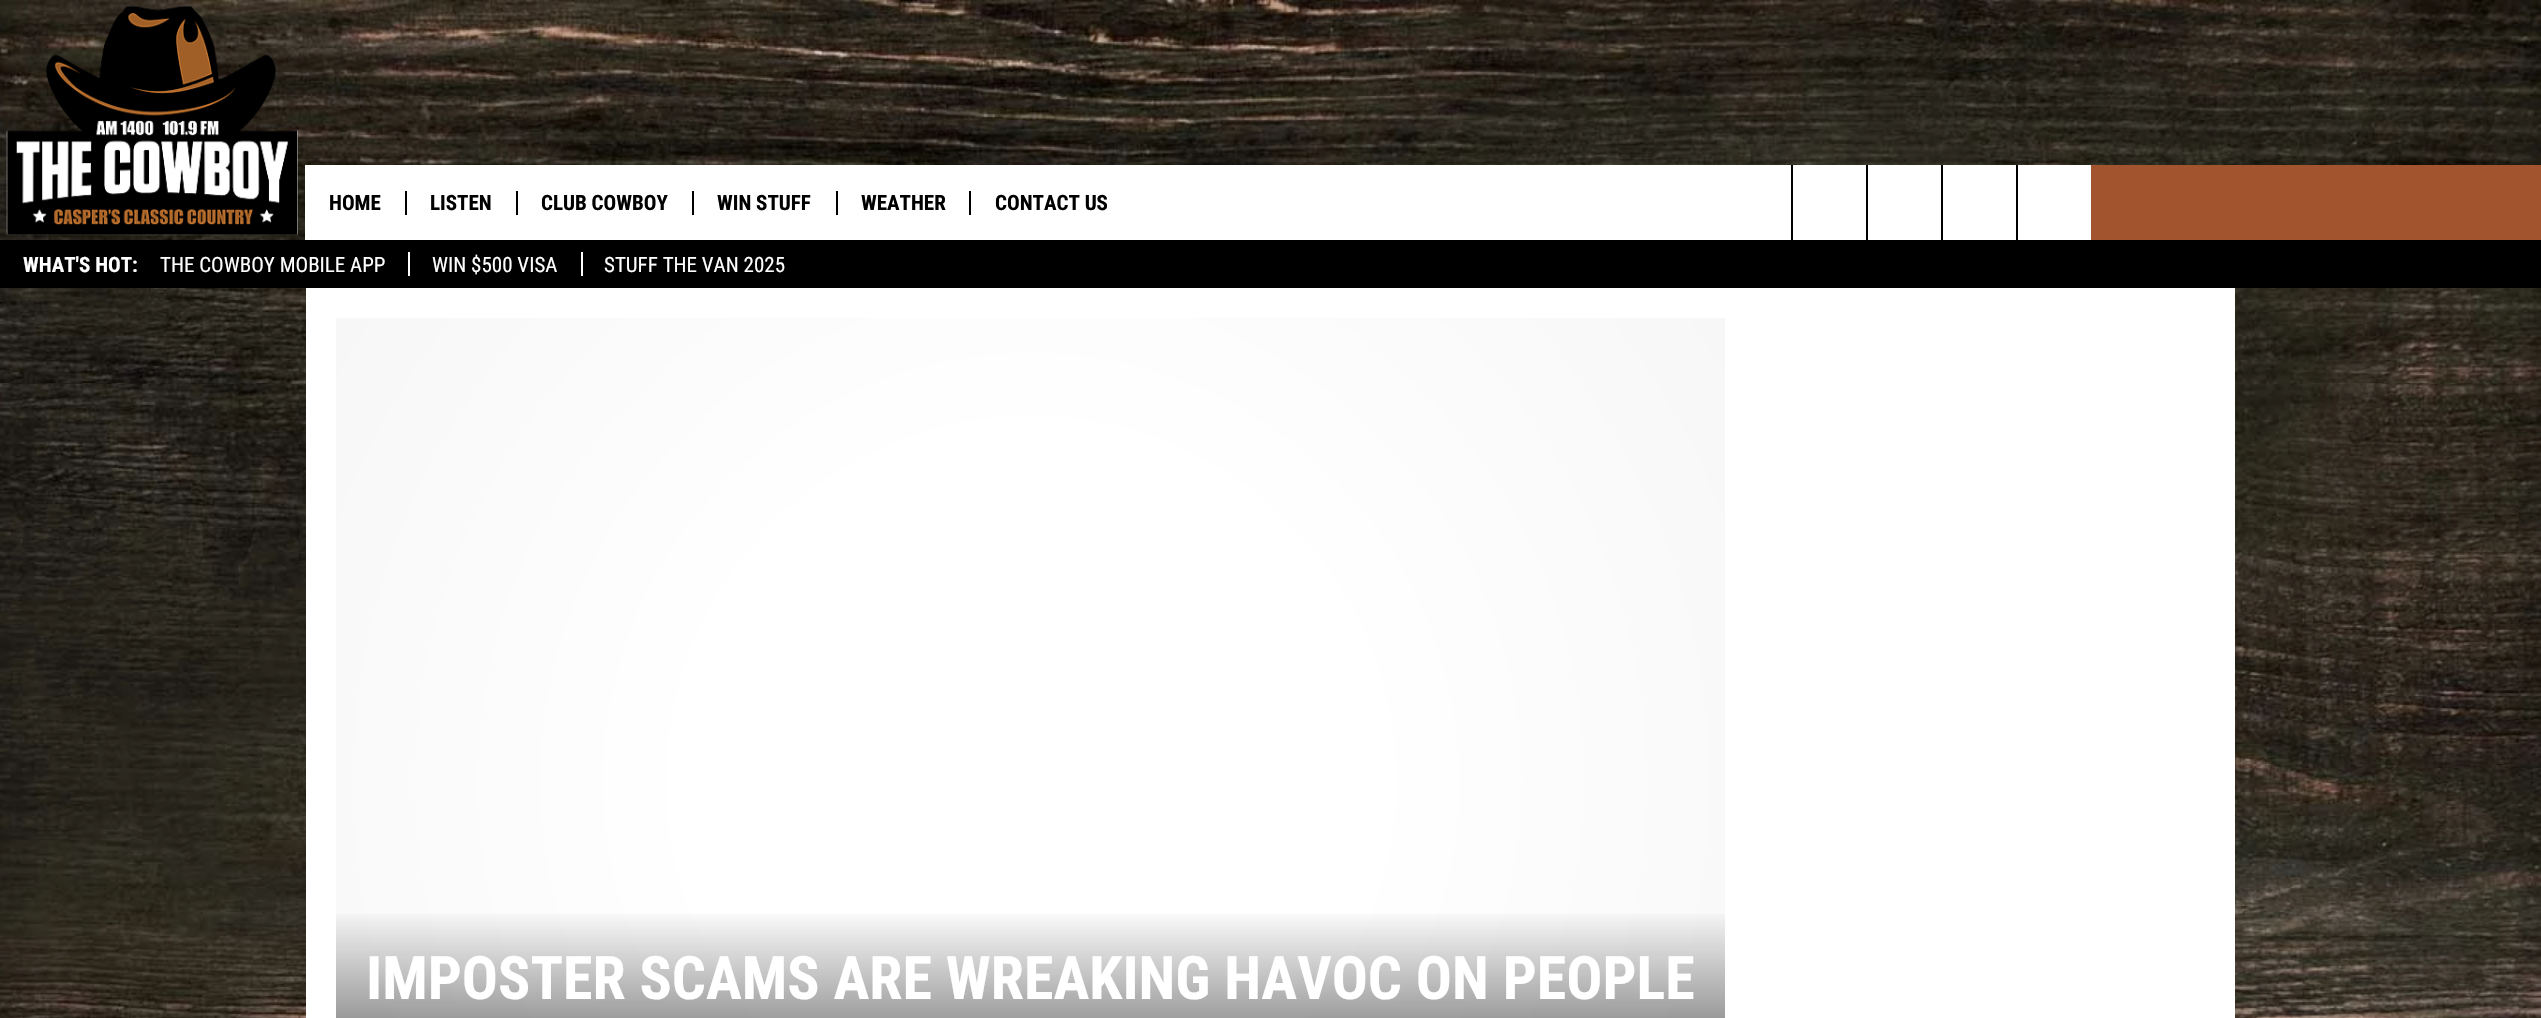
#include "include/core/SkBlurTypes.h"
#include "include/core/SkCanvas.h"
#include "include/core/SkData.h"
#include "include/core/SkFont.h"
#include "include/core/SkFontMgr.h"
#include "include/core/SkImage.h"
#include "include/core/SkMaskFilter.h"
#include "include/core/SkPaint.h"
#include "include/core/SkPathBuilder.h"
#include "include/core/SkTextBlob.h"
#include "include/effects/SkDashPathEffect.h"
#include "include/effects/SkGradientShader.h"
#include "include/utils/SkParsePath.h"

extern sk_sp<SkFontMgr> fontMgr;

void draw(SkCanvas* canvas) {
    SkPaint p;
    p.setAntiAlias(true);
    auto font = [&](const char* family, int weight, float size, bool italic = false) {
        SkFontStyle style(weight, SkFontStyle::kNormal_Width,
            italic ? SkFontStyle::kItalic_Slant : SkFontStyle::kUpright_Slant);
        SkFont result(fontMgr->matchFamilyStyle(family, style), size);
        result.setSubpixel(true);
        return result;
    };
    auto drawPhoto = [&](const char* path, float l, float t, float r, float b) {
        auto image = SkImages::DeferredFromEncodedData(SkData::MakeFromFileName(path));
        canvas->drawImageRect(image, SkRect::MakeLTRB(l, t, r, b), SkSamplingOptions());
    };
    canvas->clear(0xFFFFFFFF);
    drawPhoto("media/1.png", 0, 288, 2541, 1018);
    drawPhoto("media/2.png", 0, 0, 2541, 240);
    drawPhoto("media/3.png", 6, 5, 298, 236);
    p.setColor(0xFFFFFFFF);
    canvas->drawRect(SkRect::MakeLTRB(305, 165, 2091, 240), p);
    auto font1 = font("Roboto Condensed", 700, 21);
    p.setColor(0xFF000000);
    canvas->drawString("HOME", 329, 210, font1, p);
    canvas->drawRect(SkRect::MakeLTRB(405, 191, 407, 215), p);
    canvas->drawString("LISTEN", 430, 210, font1, p);
    canvas->drawRect(SkRect::MakeLTRB(516, 191, 518, 215), p);
    canvas->drawString("CLUB COWBOY", 541, 210, font1, p);
    canvas->drawRect(SkRect::MakeLTRB(692, 191, 694, 215), p);
    canvas->drawString("WIN STUFF", 717, 210, font1, p);
    canvas->drawRect(SkRect::MakeLTRB(836, 191, 838, 215), p);
    canvas->drawString("WEATHER", 861, 210, font1, p);
    canvas->drawRect(SkRect::MakeLTRB(969, 191, 971, 215), p);
    canvas->drawString("CONTACT US", 995, 210, font1, p);
    {
        const struct { float l, t, r, b; SkColor color; } items[] = {
            {1791, 165, 1793, 240, 0xFF000000},
            {1866, 165, 1868, 240, 0xFF000000},
            {1941, 165, 1943, 240, 0xFF000000},
            {2016, 165, 2018, 240, 0xFF000000},
            {2091, 165, 2541, 240, 0xFFA1542D},
            {0, 240, 2541, 288, 0xFF000000},
        };
        for (auto [l, t, r, b, color] : items) {
            p.setColor(color);
            canvas->drawRect(SkRect::MakeLTRB(l, t, r, b), p);
        }
    }
    p.setColor(0xFFFFFFFF);
    canvas->drawString("WHAT'S HOT:", 23, 272, font1, p);
    auto font2 = font("Roboto Condensed", 400, 21);
    canvas->drawString("THE COWBOY MOBILE APP", 160, 272, font2, p);
    canvas->drawString("WIN $500 VISA", 432, 272, font2, p);
    canvas->drawRect(SkRect::MakeLTRB(408, 252, 410, 276), p);
    canvas->drawString("STUFF THE VAN 2025", 604, 272, font2, p);
    canvas->drawRect(SkRect::MakeLTRB(581, 252, 583, 276), p);
    canvas->drawRect(SkRect::MakeLTRB(306, 288, 2235, 1018), p);
    {
        const SkColor colors[] = {0xFFFFFFFF, 0xFFF7F7F7};
        const float stops[] = {0.4f, 1};
        p.setShader(SkGradientShader::MakeRadial({1031, 781}, 835, colors, stops, 2, SkTileMode::kClamp));
        p.setAlpha(255);
    }
    canvas->drawRect(SkRect::MakeLTRB(336, 318, 1725, 1018), p);
    {
        const SkColor colors[] = {0x00000000, 0xFF000000};
        const float stops[] = {0, 1};
        const SkPoint ends[] = {{1031, 908}, {1031, 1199}};
        p.setShader(SkGradientShader::MakeLinear(ends, colors, stops, 2, SkTileMode::kClamp));
        p.setAlpha(255);
    }
    canvas->drawRect(SkRect::MakeLTRB(336, 914, 1725, 1018), p);
    auto font3 = font("Roboto Condensed", 700, 60);
    p.setShader(nullptr);
    p.setColor(0xFFFFFFFF);
    canvas->drawString("IMPOSTER SCAMS ARE WREAKING HAVOC ON PEOPLE", 366, 999, font3, p);
}
